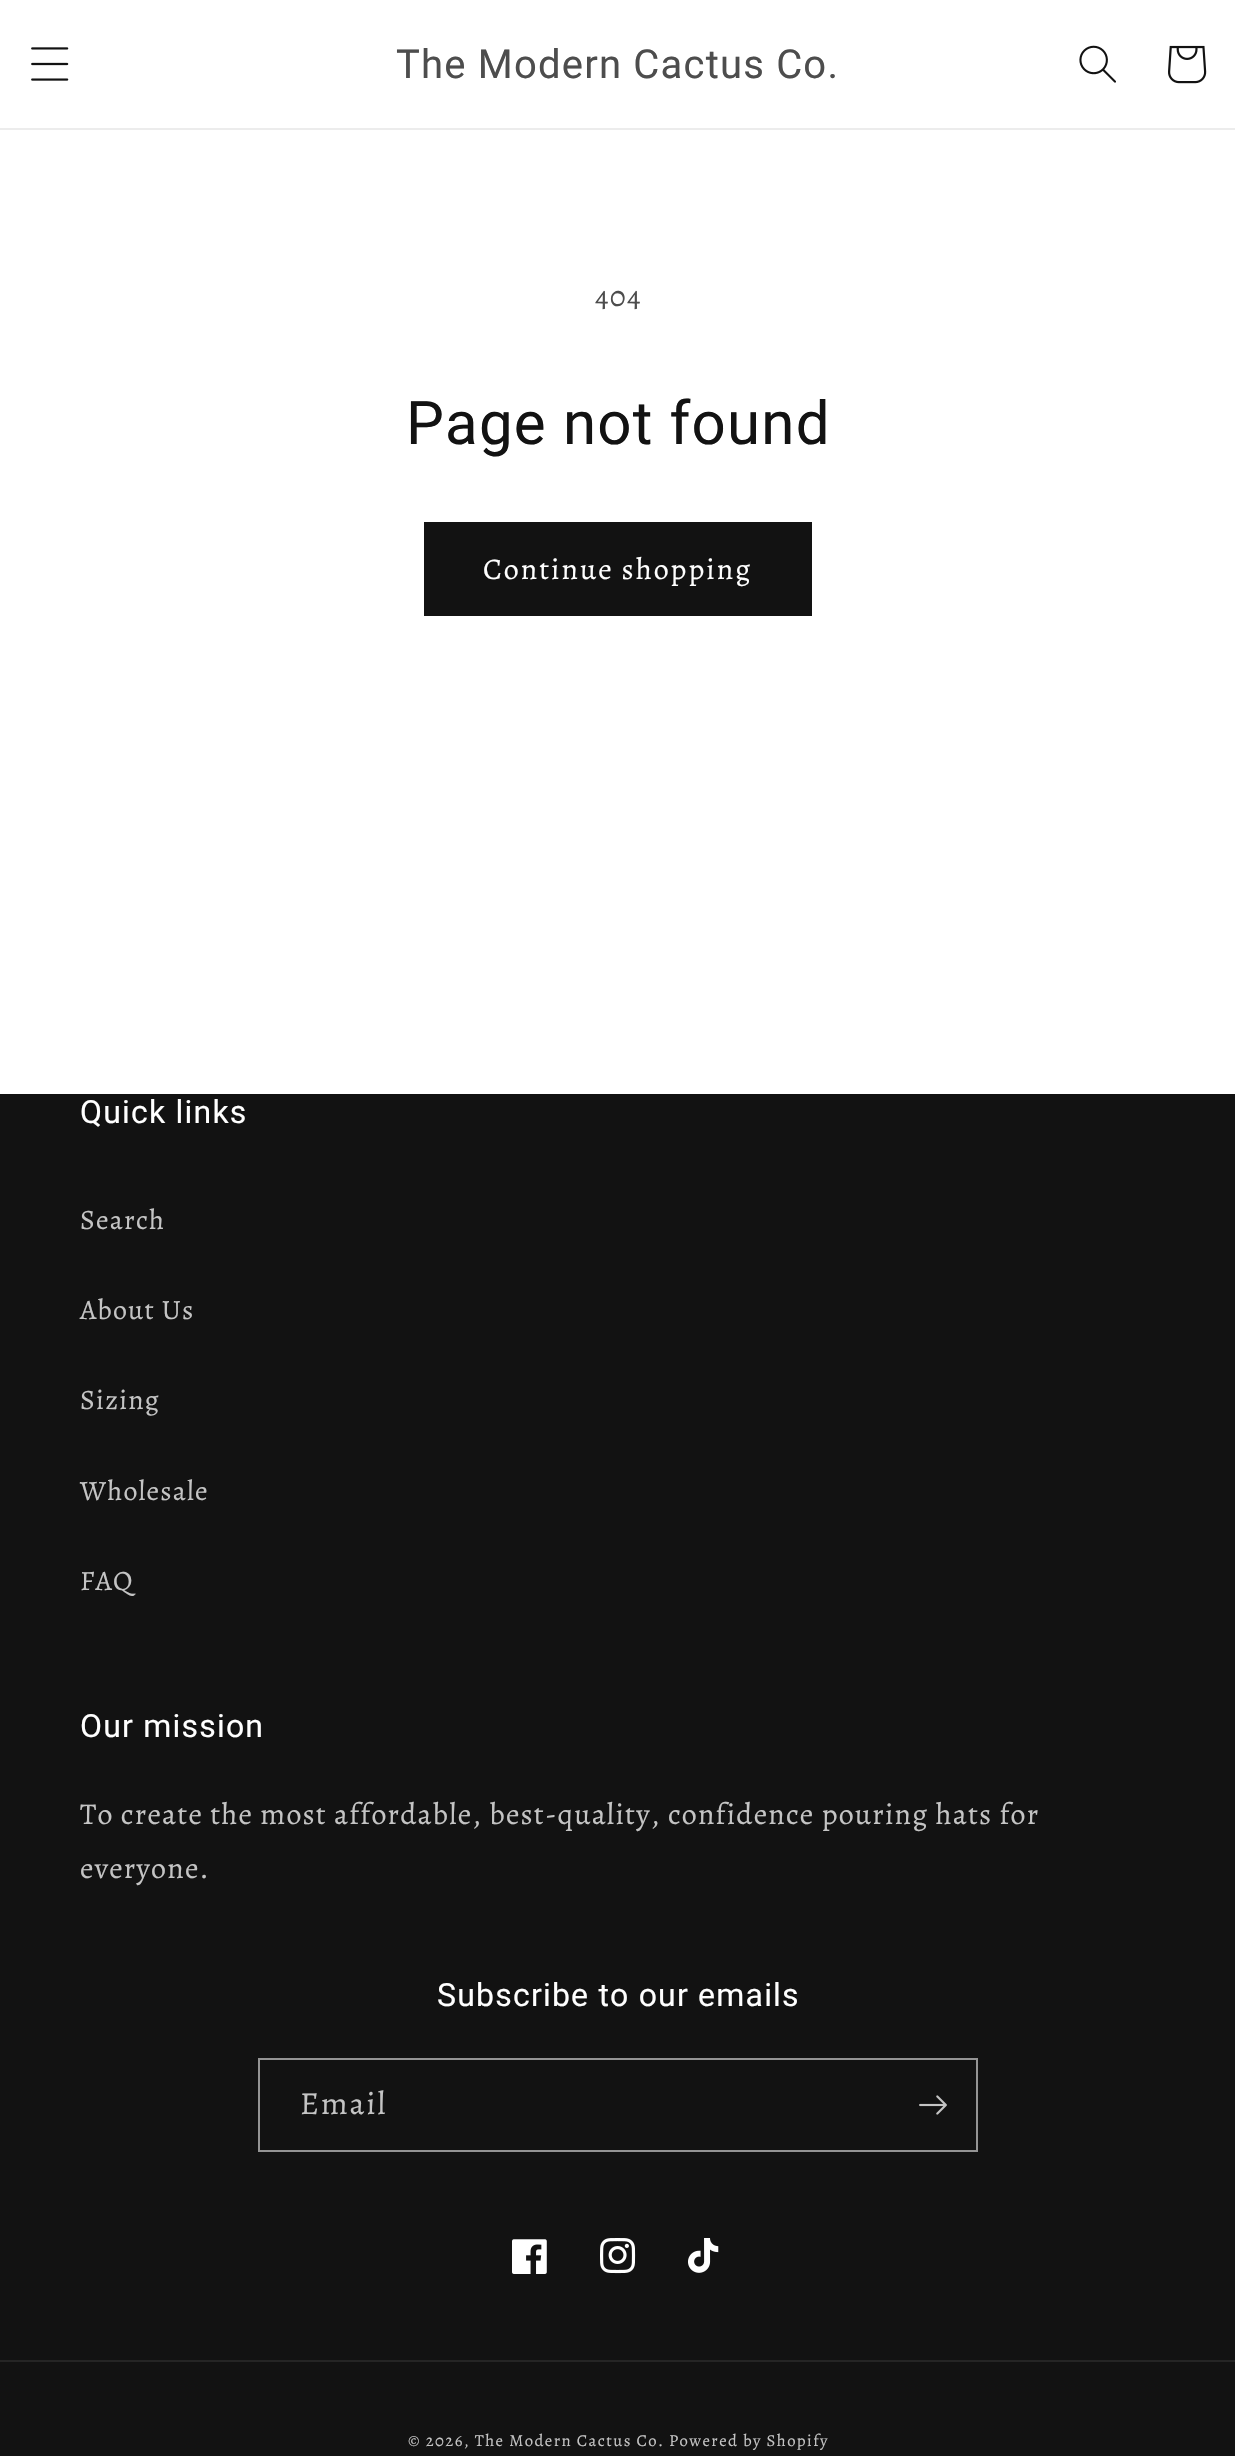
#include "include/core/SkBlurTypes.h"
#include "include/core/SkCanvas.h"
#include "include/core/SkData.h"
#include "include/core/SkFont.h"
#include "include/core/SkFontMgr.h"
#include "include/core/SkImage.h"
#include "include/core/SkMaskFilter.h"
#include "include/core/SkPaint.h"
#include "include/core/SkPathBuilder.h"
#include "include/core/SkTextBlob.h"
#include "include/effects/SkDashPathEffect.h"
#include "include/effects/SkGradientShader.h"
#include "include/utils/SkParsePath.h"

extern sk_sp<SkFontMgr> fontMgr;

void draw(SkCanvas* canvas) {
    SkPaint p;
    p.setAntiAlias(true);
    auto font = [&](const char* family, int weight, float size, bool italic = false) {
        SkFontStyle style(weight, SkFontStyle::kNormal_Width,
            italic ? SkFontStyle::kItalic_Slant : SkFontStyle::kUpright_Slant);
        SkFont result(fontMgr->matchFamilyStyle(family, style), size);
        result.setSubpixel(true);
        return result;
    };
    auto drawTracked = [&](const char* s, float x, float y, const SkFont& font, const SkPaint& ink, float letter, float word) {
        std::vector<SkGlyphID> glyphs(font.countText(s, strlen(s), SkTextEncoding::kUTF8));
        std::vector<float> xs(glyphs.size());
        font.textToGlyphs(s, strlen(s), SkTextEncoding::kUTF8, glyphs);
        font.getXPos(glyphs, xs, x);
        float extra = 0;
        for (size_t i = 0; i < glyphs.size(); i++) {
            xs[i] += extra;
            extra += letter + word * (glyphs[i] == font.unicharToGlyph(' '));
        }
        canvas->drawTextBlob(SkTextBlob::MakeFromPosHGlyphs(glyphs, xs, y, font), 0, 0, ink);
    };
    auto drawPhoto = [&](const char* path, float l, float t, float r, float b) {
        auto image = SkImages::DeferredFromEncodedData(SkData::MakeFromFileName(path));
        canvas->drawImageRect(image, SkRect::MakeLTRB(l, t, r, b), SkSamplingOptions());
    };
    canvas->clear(0xFFFFFFFF);
    p.setColor(0xFFECECEC);
    canvas->drawRect(SkRect::MakeLTRB(0, 128, 1235, 130), p);
    drawPhoto("media/1.png", 31, 47, 69, 81);
    auto font1 = font("Roboto", 400, 40);
    p.setColor(0xFF4D4D4D);
    drawTracked("The Modern Cactus Co.", 396, 78, font1, p, 1.2f, 0);
    drawPhoto("media/2.png", 1079, 45, 1116, 83);
    drawPhoto("media/3.png", 1168, 45, 1207, 84);
    auto font2 = font("Alegreya", 400, 30);
    drawTracked("404", 595, 306, font2, p, 1.2f, 0);
    auto font3 = font("Roboto", 400, 60);
    p.setColor(0xFF121212);
    drawTracked("Page not found", 406, 444, font3, p, 1.2f, 0);
    canvas->drawRect(SkRect::MakeLTRB(424, 522, 812, 616), p);
    p.setColor(0xFFFFFFFF);
    drawTracked("Continue shopping", 483, 579, font2, p, 2, 0);
    p.setColor(0xFF121212);
    canvas->drawRect(SkRect::MakeLTRB(0, 1094, 1235, 2456), p);
    auto font4 = font("Roboto", 400, 32);
    p.setColor(0xFFFFFFFF);
    drawTracked("Quick links", 80, 1123, font4, p, 1.2f, 0);
    auto font5 = font("Alegreya", 400, 28);
    p.setColor(0xFFC4C4C4);
    {
        const struct { const char* s; float x, y; } items[] = {
            {"Search", 80, 1229},
            {"About Us", 80, 1319},
            {"Sizing", 80, 1409},
            {"Wholesale", 80, 1500},
            {"FAQ", 80, 1590},
        };
        for (auto [s, x, y] : items) {
            drawTracked(s, x, y, font5, p, 1.2f, 0);
        }
    }
    p.setColor(0xFFFFFFFF);
    drawTracked("Our mission", 80, 1737, font4, p, 1.2f, 0);
    p.setColor(0xFFC4C4C4);
    drawTracked("To create the most affordable, best-quality, confidence pouring hats for", 80, 1824, font2, p, 1.2f, 0);
    drawTracked("everyone.", 80, 1878, font2, p, 1.2f, 0);
    p.setColor(0xFFFFFFFF);
    drawTracked("Subscribe to our emails", 437, 2006, font4, p, 1.2f, 0);
    p.setStyle(SkPaint::kStroke_Style);
    p.setStrokeWidth(2);
    p.setColor(0xFF949494);
    canvas->drawRect(SkRect::MakeLTRB(259, 2059, 977, 2151), p);
    auto font6 = font("Alegreya", 400, 32);
    p.setStyle(SkPaint::kFill_Style);
    p.setColor(0xFFC4C4C4);
    drawTracked("Email", 300, 2114, font6, p, 2, 0);
    drawPhoto("media/4.png", 919, 2095, 947, 2115);
    drawPhoto("media/5.png", 512, 2239, 547, 2274);
    drawPhoto("media/6.png", 600, 2238, 636, 2274);
    drawPhoto("media/7.png", 688, 2238, 719, 2273);
    p.setColor(0xFF252525);
    canvas->drawRect(SkRect::MakeLTRB(0, 2360, 1235, 2362), p);
    auto font7 = font("Alegreya", 400, 16.7f);
    p.setColor(0xFFC4C4C4);
    drawTracked("© 2026, The Modern Cactus Co.", 408, 2446, font7, p, 1.4f, 0);
    drawTracked("Powered by Shopify", 669, 2446, font7, p, 1.4f, 0);
}
